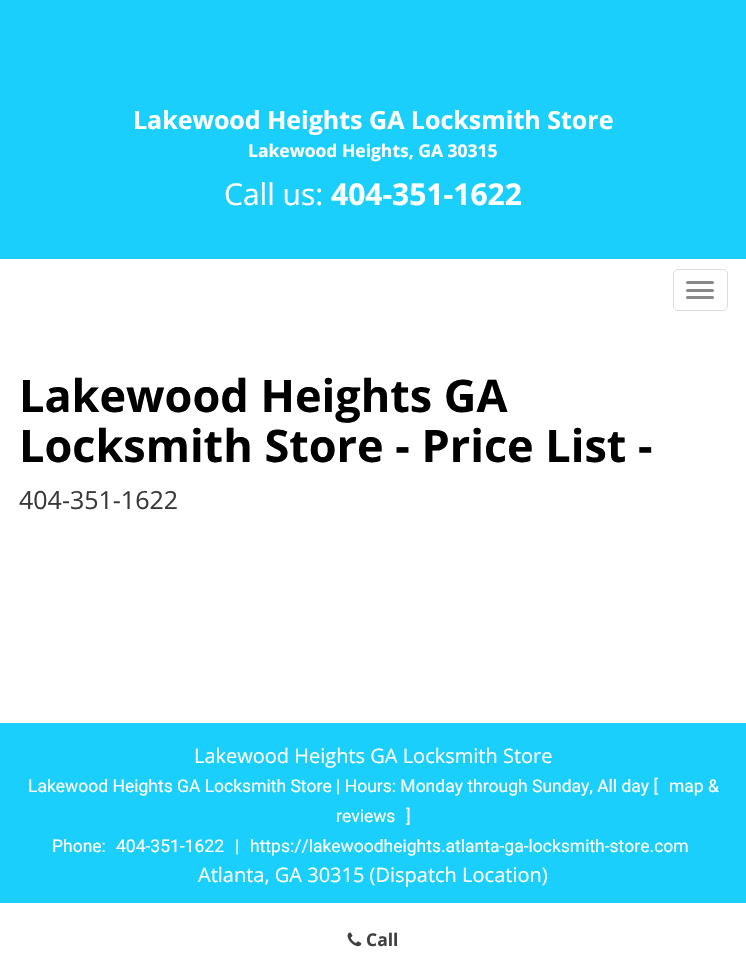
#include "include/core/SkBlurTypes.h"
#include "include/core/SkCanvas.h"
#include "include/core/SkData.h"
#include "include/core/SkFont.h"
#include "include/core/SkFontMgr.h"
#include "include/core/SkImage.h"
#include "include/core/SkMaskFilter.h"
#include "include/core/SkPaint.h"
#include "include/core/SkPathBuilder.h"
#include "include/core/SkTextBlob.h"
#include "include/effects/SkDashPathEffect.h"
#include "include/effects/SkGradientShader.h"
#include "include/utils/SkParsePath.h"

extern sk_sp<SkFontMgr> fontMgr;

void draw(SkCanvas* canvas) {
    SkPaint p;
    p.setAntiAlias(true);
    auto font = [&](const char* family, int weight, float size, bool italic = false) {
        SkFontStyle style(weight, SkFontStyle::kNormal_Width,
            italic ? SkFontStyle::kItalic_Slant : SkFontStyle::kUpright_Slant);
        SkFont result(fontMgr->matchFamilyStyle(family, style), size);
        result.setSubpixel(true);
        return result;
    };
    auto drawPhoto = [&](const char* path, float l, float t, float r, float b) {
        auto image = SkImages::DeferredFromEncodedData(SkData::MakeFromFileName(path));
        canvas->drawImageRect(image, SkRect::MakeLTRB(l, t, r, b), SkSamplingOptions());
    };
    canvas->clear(0xFFFFFFFF);
    p.setColor(0xFF1BCFFC);
    canvas->drawRect(SkRect::MakeLTRB(0, 0, 746, 259), p);
    auto font1 = font("Open Sans", 700, 25);
    p.setColor(0xFFFFFFFF);
    canvas->drawString("Lakewood Heights GA Locksmith Store", 133, 129, font1, p);
    auto font2 = font("Open Sans", 700, 17.5f);
    canvas->drawString("Lakewood Heights, GA 30315", 248, 157, font2, p);
    auto font3 = font("Open Sans", 400, 30);
    canvas->drawString("Call us:", 224, 205, font3, p);
    auto font4 = font("Open Sans", 700, 30);
    canvas->drawString("404-351-1622", 331, 205, font4, p);
    p.setStyle(SkPaint::kStroke_Style);
    p.setStrokeWidth(1);
    p.setColor(0xFFDDDDDD);
    canvas->drawRoundRect(SkRect::MakeLTRB(673.5f, 269.5f, 727.5f, 310.5f), 4.5f, 4.5f, p);
    p.setStyle(SkPaint::kFill_Style);
    p.setColor(0xFF888888);
    canvas->drawRoundRect(SkRect::MakeLTRB(686, 281, 714, 284), 1.5f, 1.5f, p);
    canvas->drawRoundRect(SkRect::MakeLTRB(686, 289, 714, 292), 1.5f, 1.5f, p);
    canvas->drawRoundRect(SkRect::MakeLTRB(686, 296, 714, 299), 1.5f, 1.5f, p);
    auto font5 = font("Open Sans", 700, 45);
    p.setColor(0xFF000000);
    canvas->drawString("Lakewood Heights GA", 19, 412, font5, p);
    canvas->drawString("Locksmith Store - Price List -", 19, 462, font5, p);
    auto font6 = font("Open Sans", 400, 25);
    p.setColor(0xFF383838);
    canvas->drawString("404-351-1622", 19, 509, font6, p);
    p.setColor(0xFF1BCFFC);
    canvas->drawRect(SkRect::MakeLTRB(0, 723, 746, 903), p);
    auto font7 = font("Open Sans", 400, 20);
    p.setColor(0xFFFFFFFF);
    canvas->drawString("Lakewood Heights GA Locksmith Store", 194, 763, font7, p);
    auto font8 = font("Roboto", 400, 17.5f);
    {
        const struct { const char* s; float x, y; } items[] = {
            {"Lakewood Heights GA Locksmith Store | Hours: Monday through Sunday, All day [", 28, 792},
            {"map &", 669, 792},
            {"reviews", 336, 822},
            {"]", 406, 822},
            {"Phone:", 52, 852},
            {"404-351-1622", 116, 852},
            {"|", 235, 852},
            {"https://lakewoodheights.atlanta-ga-locksmith-store.com", 250, 852},
        };
        for (auto [s, x, y] : items) {
            canvas->drawString(s, x, y, font8, p);
        }
    }
    canvas->drawString("Atlanta, GA 30315 (Dispatch Location)", 198, 882, font7, p);
    drawPhoto("media/1.png", 347, 932, 362, 947);
    p.setColor(0xFF404040);
    canvas->drawString("Call", 366, 946, font2, p);
}
